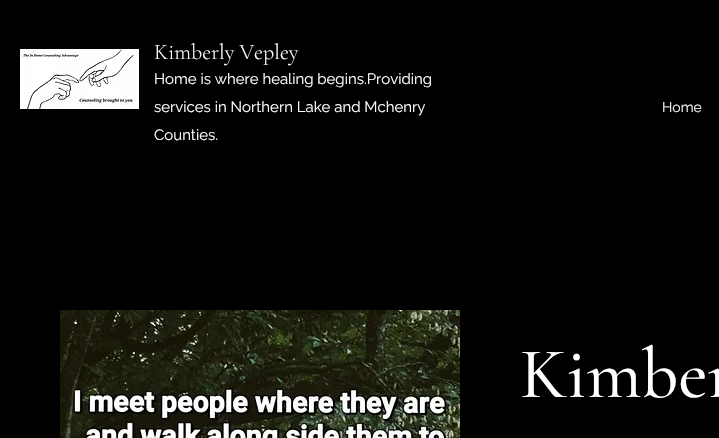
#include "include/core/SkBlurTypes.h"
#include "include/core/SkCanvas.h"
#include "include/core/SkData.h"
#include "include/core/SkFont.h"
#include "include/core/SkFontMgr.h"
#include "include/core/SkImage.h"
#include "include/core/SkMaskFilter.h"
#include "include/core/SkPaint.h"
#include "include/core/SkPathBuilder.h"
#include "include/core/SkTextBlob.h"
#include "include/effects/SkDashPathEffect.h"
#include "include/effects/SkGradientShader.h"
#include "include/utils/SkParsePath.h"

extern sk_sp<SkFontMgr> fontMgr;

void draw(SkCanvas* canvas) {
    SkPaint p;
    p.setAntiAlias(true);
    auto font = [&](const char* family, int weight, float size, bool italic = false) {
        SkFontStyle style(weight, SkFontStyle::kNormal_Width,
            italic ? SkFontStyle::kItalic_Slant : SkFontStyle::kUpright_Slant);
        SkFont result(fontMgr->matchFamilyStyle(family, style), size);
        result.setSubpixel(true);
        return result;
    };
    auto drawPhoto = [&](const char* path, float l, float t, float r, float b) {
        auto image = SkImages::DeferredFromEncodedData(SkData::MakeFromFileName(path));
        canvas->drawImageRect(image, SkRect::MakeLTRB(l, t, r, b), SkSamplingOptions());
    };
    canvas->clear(0xFF000000);
    drawPhoto("media/1.png", 20, 49, 139, 109);
    auto font1 = font("Cormorant Garamond", 300, 22);
    p.setColor(0xFFFFFFFF);
    canvas->drawString("Kimberly Vepley", 154, 59, font1, p);
    auto font2 = font("Raleway", 400, 15);
    {
        const struct { const char* s; float x, y; } items[] = {
            {"Home is where healing begins.Providing", 154, 84},
            {"services in Northern Lake and Mchenry", 154, 112},
            {"Counties.", 154, 140},
        };
        for (auto [s, x, y] : items) {
            canvas->drawString(s, x, y, font2, p);
        }
    }
    auto font3 = font("Raleway", 400, 14);
    p.setColor(0xFFF7F7F7);
    canvas->drawString("Home", 662, 112, font3, p);
    drawPhoto("media/2.png", 60, 310, 460, 438);
    auto font4 = font("Cormorant Garamond", 500, 72);
    p.setColor(0xFFFFFFFF);
    canvas->drawString("Kimber", 520, 397, font4, p);
}
